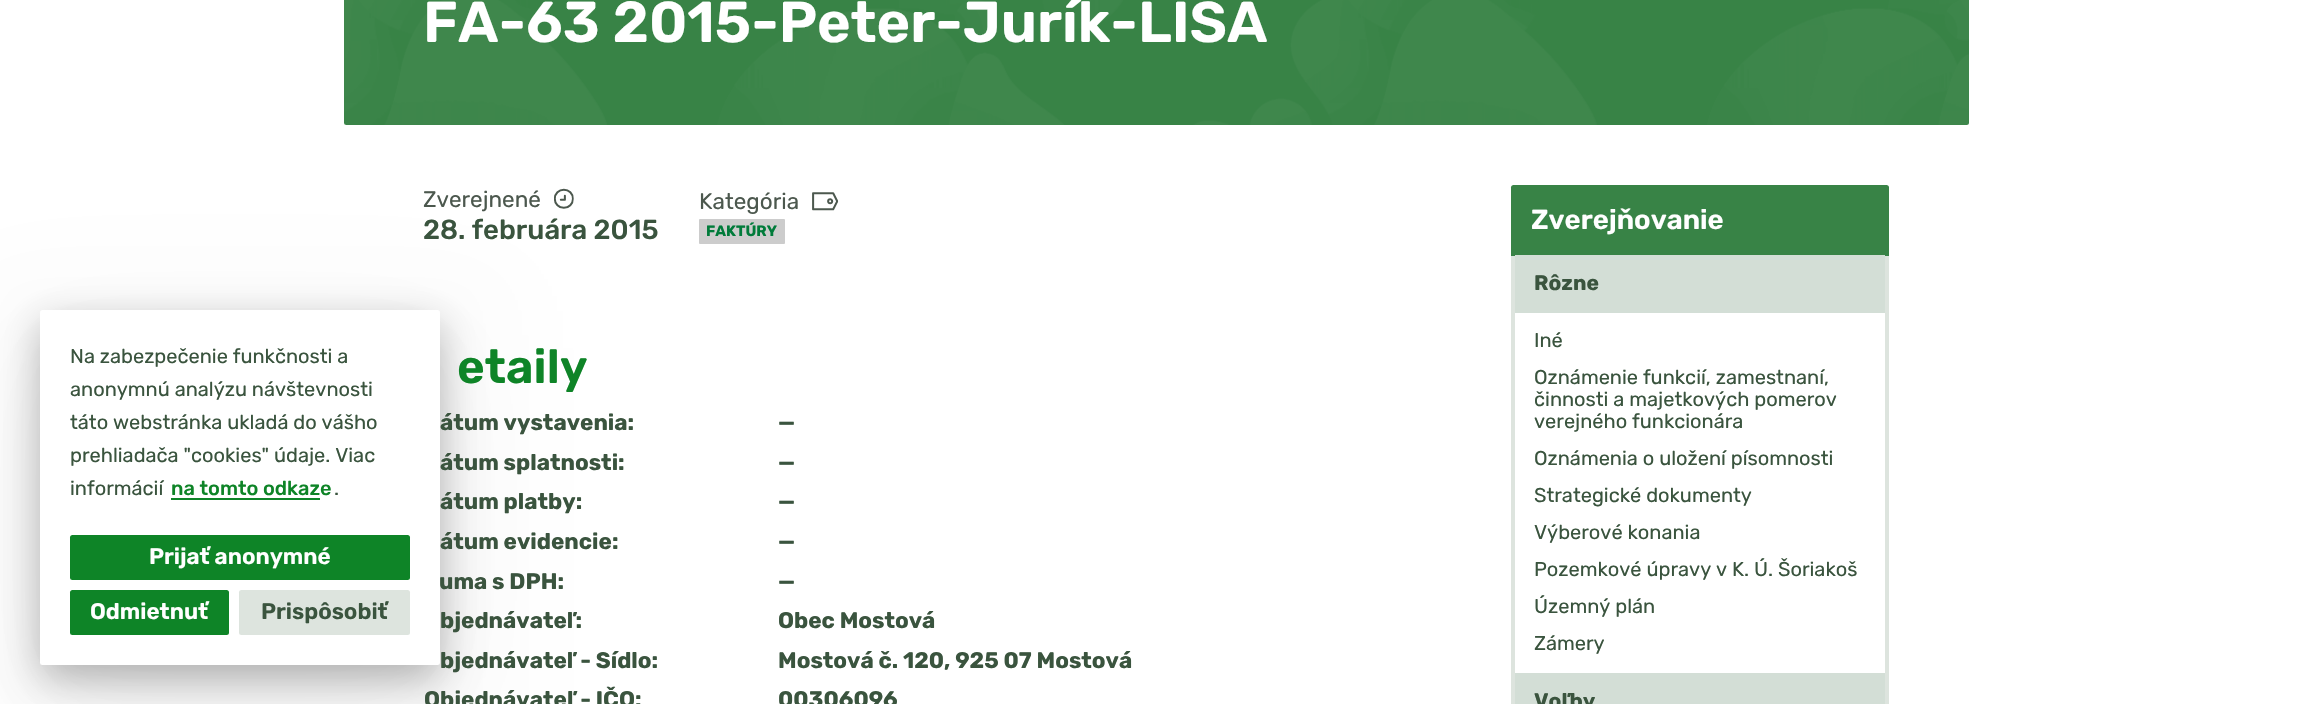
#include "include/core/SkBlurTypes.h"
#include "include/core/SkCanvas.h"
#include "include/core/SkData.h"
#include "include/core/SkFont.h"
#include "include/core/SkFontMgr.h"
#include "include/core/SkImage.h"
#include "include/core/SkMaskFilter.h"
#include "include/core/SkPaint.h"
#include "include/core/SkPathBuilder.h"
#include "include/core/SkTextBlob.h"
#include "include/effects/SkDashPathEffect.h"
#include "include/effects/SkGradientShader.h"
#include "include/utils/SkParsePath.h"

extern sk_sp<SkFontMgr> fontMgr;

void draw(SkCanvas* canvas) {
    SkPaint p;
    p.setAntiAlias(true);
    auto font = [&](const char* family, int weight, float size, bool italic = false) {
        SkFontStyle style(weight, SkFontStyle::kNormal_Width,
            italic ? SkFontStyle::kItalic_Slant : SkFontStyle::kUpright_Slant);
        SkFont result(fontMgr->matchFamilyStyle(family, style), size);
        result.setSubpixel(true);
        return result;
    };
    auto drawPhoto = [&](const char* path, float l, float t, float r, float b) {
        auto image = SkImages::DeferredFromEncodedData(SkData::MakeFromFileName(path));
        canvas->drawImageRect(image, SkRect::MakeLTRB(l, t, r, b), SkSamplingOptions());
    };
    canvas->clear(0xFFFFFFFF);
    drawPhoto("media/2.png", 554, 188, 574, 209);
    p.setColor(0x0D000000);
    p.setMaskFilter(SkMaskFilter::MakeBlur(kNormal_SkBlurStyle, 56));
    canvas->drawRoundRect(SkRect::MakeLTRB(40, 348, 440, 703), 2.5f, 2.5f, p);
    p.setMaskFilter(nullptr);
    p.setMaskFilter(SkMaskFilter::MakeBlur(kNormal_SkBlurStyle, 37.5f));
    canvas->drawRoundRect(SkRect::MakeLTRB(40, 335, 440, 690), 2.5f, 2.5f, p);
    p.setMaskFilter(nullptr);
    p.setColor(0x40000000);
    p.setMaskFilter(SkMaskFilter::MakeBlur(kNormal_SkBlurStyle, 19));
    canvas->drawRoundRect(SkRect::MakeLTRB(40, 323, 440, 678), 2.5f, 2.5f, p);
    p.setMaskFilter(nullptr);
    p.setColor(0xFFFFFFFF);
    canvas->drawRoundRect(SkRect::MakeLTRB(40, 310, 440, 665), 2.5f, 2.5f, p);
    auto font1 = font("Rubik", 400, 20);
    p.setColor(0xFF3A543E);
    {
        const struct { const char* s; float x, y; } items[] = {
            {"Na zabezpečenie funkčnosti a", 70, 363},
            {"anonymnú analýzu návštevnosti", 70, 396},
            {"táto webstránka ukladá do vášho", 70, 429},
            {"prehliadača \"cookies\" údaje. Viac", 70, 462},
            {"informácií", 70, 495},
        };
        for (auto [s, x, y] : items) {
            canvas->drawString(s, x, y, font1, p);
        }
    }
    auto font2 = font("Rubik", 500, 20);
    p.setColor(0xFF0E8427);
    canvas->drawString("na tomto odkaze", 171, 495, font2, p);
    canvas->drawRect(SkRect::MakeLTRB(171, 498, 320, 500), p);
    p.setColor(0xFF3A543E);
    canvas->drawString(".", 334, 495, font1, p);
    p.setColor(0xFF0E8427);
    canvas->drawRoundRect(SkRect::MakeLTRB(70, 535, 410, 580), 2.5f, 2.5f, p);
    auto font3 = font("Rubik", 600, 22.5f);
    p.setColor(0xFFFFFFFF);
    canvas->drawString("Prijať anonymné", 149, 564, font3, p);
    p.setColor(0xFF0E8427);
    canvas->drawRoundRect(SkRect::MakeLTRB(70, 590, 229, 635), 2.5f, 2.5f, p);
    p.setColor(0xFFFFFFFF);
    canvas->drawString("Odmietnuť", 90, 619, font3, p);
    p.setColor(0xFFDDE4DE);
    canvas->drawRoundRect(SkRect::MakeLTRB(239, 590, 410, 635), 2.5f, 2.5f, p);
    p.setColor(0xFF3A543E);
    canvas->drawString("Prispôsobiť", 261, 619, font3, p);
    p.setColor(0xFF388346);
    canvas->drawRoundRect(SkRect::MakeLTRB(344, -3, 1969, 125), 2.5f, 2.5f, p);
    drawPhoto("media/1.png", 344, 0, 1969, 125);
    auto font4 = font("Rubik", 600, 57.5f);
    p.setColor(0xFFFFFFFF);
    canvas->drawString("FA-63 2015-Peter-Jurík-LISA", 423, 42, font4, p);
    auto font5 = font("Rubik", 400, 22.5f);
    p.setColor(0xFF4C584E);
    canvas->drawString("Zverejnené", 423, 207, font5, p);
    auto font6 = font("Rubik", 500, 27.5f);
    p.setColor(0xFF3A543E);
    canvas->drawString("28. februára 2015", 423, 239, font6, p);
    p.setColor(0xFF4C584E);
    canvas->drawString("Kategória", 699, 209, font5, p);
    drawPhoto("media/3.png", 812, 192, 839, 211);
    p.setColor(0xFFCCCCCC);
    canvas->drawRoundRect(SkRect::MakeLTRB(699, 219, 785, 244), 1, 1, p);
    auto font7 = font("Rubik", 700, 15);
    p.setColor(0xFF007B3A);
    canvas->drawString("FAKTÚRY", 706, 236, font7, p);
    auto font8 = font("Rubik", 600, 47.5f);
    p.setColor(0xFF0E8427);
    canvas->drawString("etaily", 457, 383, font8, p);
    auto font9 = font("Rubik", 700, 22.5f);
    p.setColor(0xFF3A543E);
    {
        const struct { const char* s; float x, y; } items[] = {
            {"átum vystavenia:", 440, 430},
            {"—", 778, 430},
            {"átum splatnosti:", 440, 470},
            {"—", 778, 470},
            {"átum platby:", 440, 509},
            {"—", 778, 509},
            {"átum evidencie:", 440, 549},
            {"—", 778, 549},
            {"uma s DPH:", 439, 589},
            {"—", 778, 589},
            {"bjednávateľ:", 440, 628},
            {"Obec Mostová", 778, 628},
            {"bjednávateľ - Sídlo:", 440, 668},
            {"Mostová č. 120, 925 07 Mostová", 778, 668},
            {"Objednávateľ - IČO:", 424, 707},
            {"00306096", 778, 707},
        };
        for (auto [s, x, y] : items) {
            canvas->drawString(s, x, y, font9, p);
        }
    }
    p.setStyle(SkPaint::kStroke_Style);
    p.setStrokeWidth(4);
    p.setColor(0xFFDDE4DE);
    canvas->drawRect(SkRect::MakeLTRB(1513, 253, 1887, 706), p);
    p.setStyle(SkPaint::kFill_Style);
    p.setColor(0xFF388346);
    canvas->drawPath(SkPathBuilder().moveTo(1513.5f, 185).lineTo(1886.5f, 185).cubicTo(1888, 185, 1889, 186, 1889, 187.5f).lineTo(1889, 256).lineTo(1511, 256).lineTo(1511, 187.5f).cubicTo(1511, 186, 1512, 185, 1513.5f, 185).close().detach(), p);
    auto font10 = font("Rubik", 600, 27.5f);
    p.setColor(0xFFFFFFFF);
    canvas->drawString("Zverejňovanie", 1531, 229, font10, p);
    p.setColor(0xFFD3DED6);
    canvas->drawRect(SkRect::MakeLTRB(1515, 255, 1885, 313), p);
    auto font11 = font("Rubik", 700, 21);
    p.setColor(0xFF3A543E);
    canvas->drawString("Rôzne", 1534, 290, font11, p);
    {
        const struct { const char* s; float x, y; } items[] = {
            {"Iné", 1534, 347},
            {"Oznámenie funkcií, zamestnaní,", 1534, 384},
            {"činnosti a majetkových pomerov", 1534, 406},
            {"verejného funkcionára", 1534, 428},
            {"Oznámenia o uložení písomnosti", 1534, 465},
            {"Strategické dokumenty", 1534, 502},
            {"Výberové konania", 1534, 539},
            {"Pozemkové úpravy v K. Ú. Šoriakoš", 1534, 576},
            {"Územný plán", 1534, 613},
            {"Zámery", 1534, 650},
        };
        for (auto [s, x, y] : items) {
            canvas->drawString(s, x, y, font1, p);
        }
    }
    p.setColor(0xFFD3DED6);
    canvas->drawRect(SkRect::MakeLTRB(1515, 673, 1885, 704), p);
    p.setColor(0xFF3A543E);
    canvas->drawString("Voľby", 1534, 708, font11, p);
}
